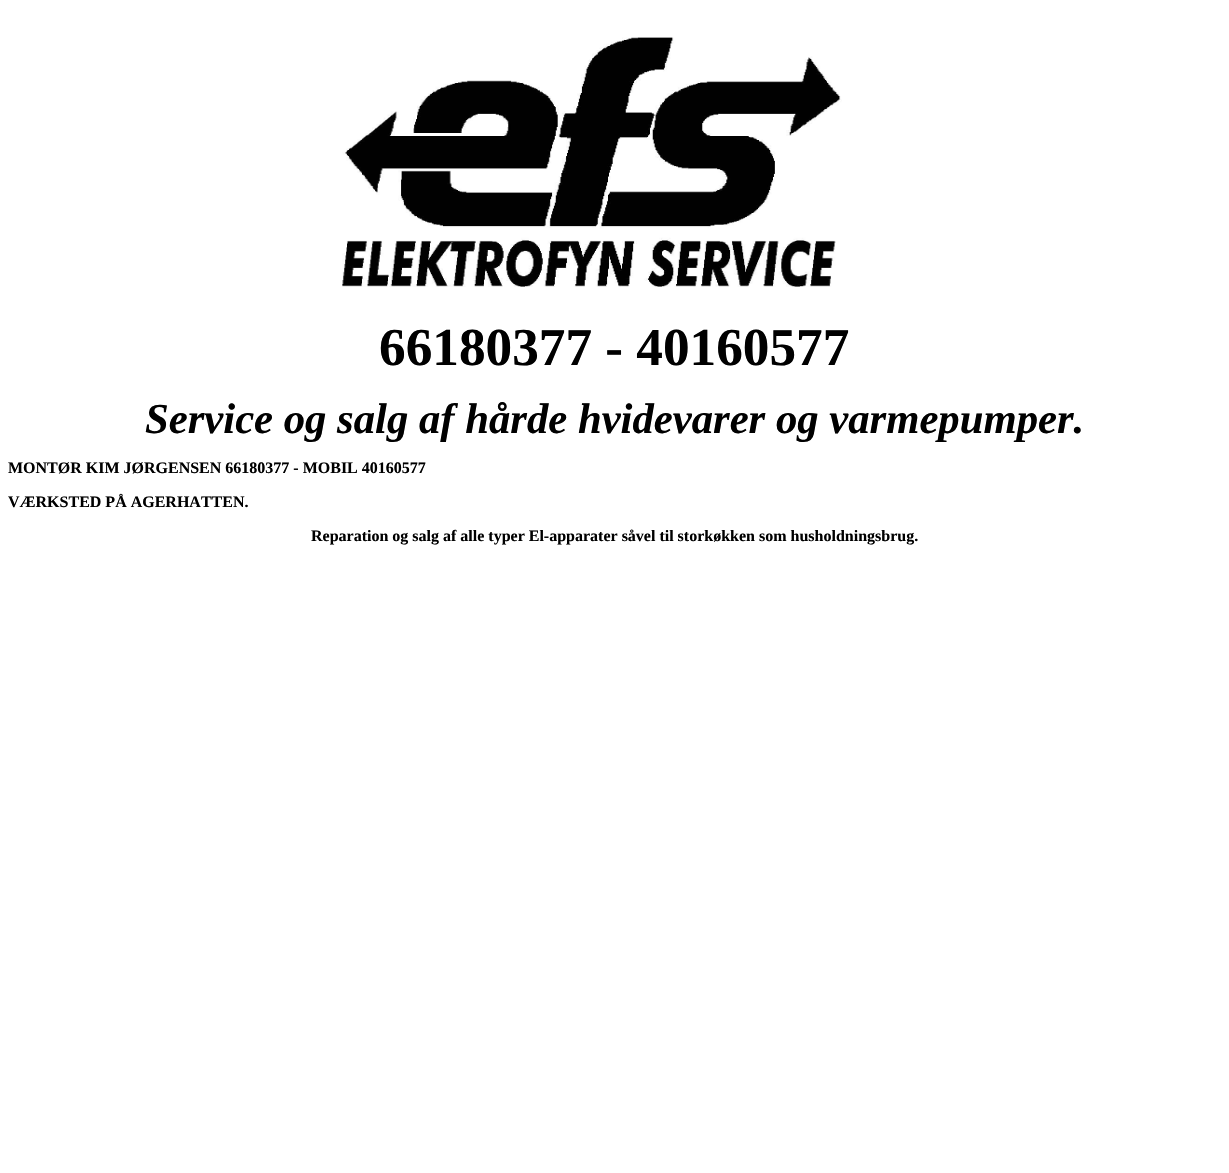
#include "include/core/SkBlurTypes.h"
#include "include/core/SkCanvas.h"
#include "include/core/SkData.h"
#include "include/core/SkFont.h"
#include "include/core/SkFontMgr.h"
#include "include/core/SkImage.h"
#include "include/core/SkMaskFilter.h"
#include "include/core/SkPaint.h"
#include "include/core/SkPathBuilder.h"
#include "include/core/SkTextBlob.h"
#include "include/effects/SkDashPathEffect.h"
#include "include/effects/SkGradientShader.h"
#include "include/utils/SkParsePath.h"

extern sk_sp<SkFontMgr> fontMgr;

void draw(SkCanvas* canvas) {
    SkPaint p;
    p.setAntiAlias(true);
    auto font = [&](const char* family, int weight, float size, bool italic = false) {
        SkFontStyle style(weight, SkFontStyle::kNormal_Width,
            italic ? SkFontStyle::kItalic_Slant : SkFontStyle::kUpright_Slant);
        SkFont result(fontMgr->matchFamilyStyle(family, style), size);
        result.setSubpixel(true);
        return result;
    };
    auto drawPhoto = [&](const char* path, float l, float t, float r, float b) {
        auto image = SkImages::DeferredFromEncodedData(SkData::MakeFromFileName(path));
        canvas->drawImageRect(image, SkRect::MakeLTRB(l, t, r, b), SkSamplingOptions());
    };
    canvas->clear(0xFFFFFFFF);
    drawPhoto("media/1.png", 342, 37, 842, 287);
    auto font1 = font("Liberation Serif", 700, 53.25f);
    p.setColor(0xFF000000);
    canvas->drawString("66180377 - 40160577", 379, 365, font1, p);
    auto font2 = font("Liberation Serif", 700, 42.7f, true);
    canvas->drawString("Service og salg af hårde hvidevarer og varmepumper.", 145, 433, font2, p);
    auto font3 = font("Liberation Serif", 700, 16);
    {
        const struct { const char* s; float x, y; } items[] = {
            {"MONTØR KIM JØRGENSEN 66180377 - MOBIL 40160577", 8, 473},
            {"VÆRKSTED PÅ AGERHATTEN.", 8, 507},
            {"Reparation og salg af alle typer El-apparater såvel til storkøkken som husholdningsbrug.", 311, 541},
        };
        for (auto [s, x, y] : items) {
            canvas->drawString(s, x, y, font3, p);
        }
    }
}
